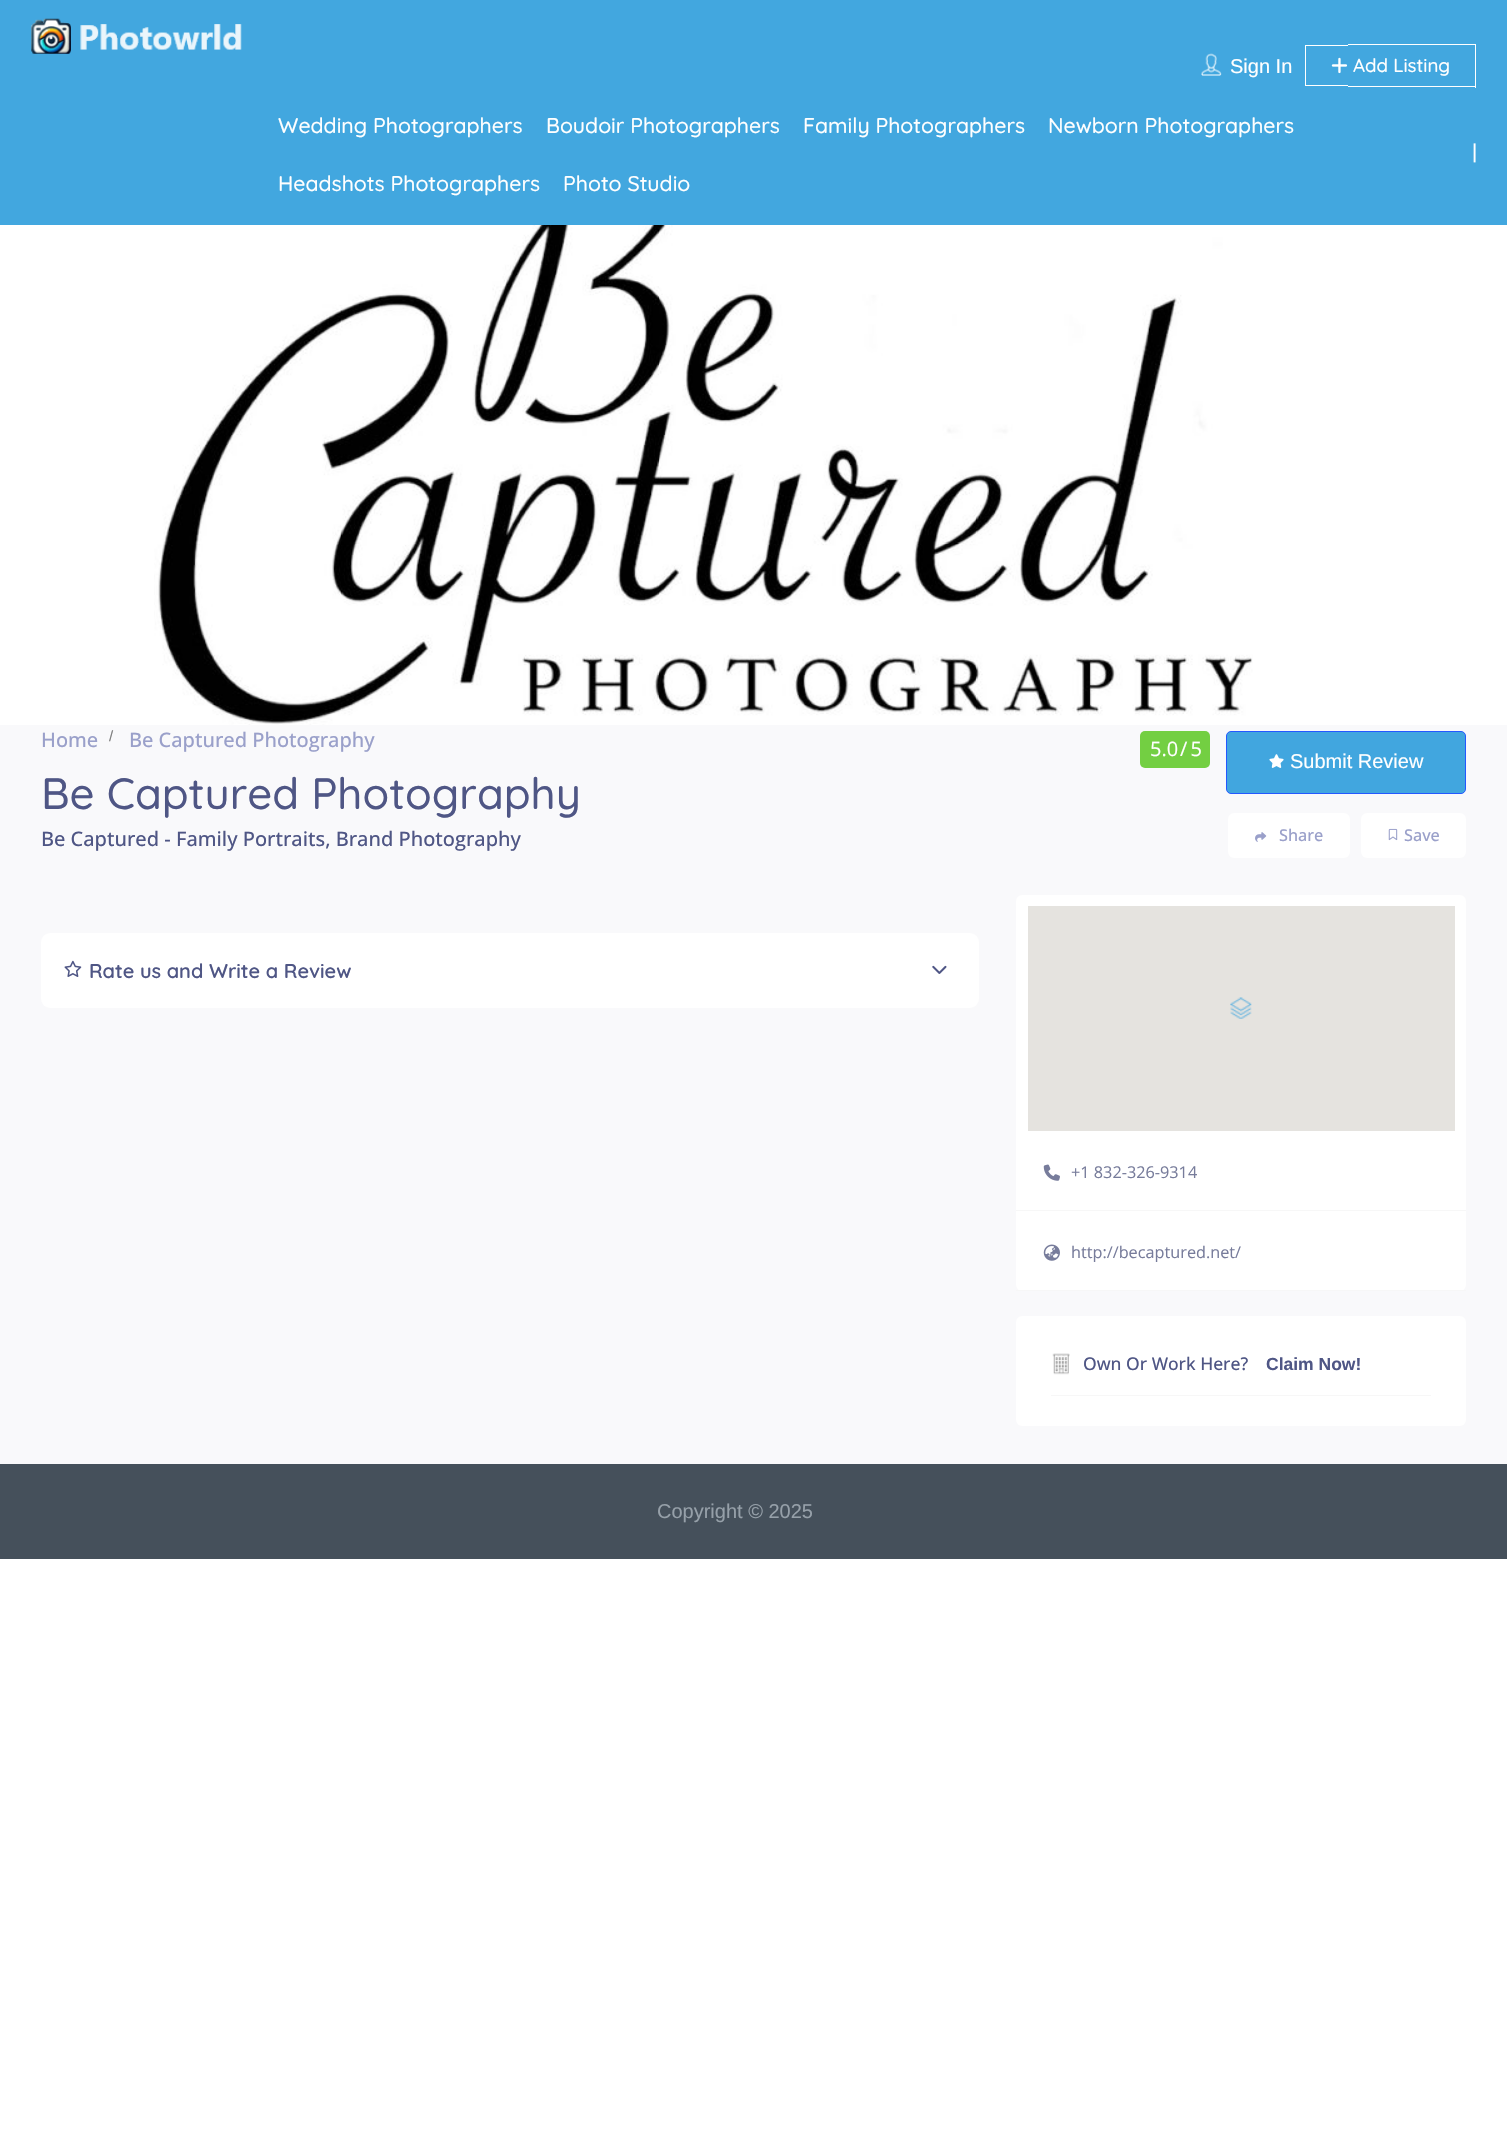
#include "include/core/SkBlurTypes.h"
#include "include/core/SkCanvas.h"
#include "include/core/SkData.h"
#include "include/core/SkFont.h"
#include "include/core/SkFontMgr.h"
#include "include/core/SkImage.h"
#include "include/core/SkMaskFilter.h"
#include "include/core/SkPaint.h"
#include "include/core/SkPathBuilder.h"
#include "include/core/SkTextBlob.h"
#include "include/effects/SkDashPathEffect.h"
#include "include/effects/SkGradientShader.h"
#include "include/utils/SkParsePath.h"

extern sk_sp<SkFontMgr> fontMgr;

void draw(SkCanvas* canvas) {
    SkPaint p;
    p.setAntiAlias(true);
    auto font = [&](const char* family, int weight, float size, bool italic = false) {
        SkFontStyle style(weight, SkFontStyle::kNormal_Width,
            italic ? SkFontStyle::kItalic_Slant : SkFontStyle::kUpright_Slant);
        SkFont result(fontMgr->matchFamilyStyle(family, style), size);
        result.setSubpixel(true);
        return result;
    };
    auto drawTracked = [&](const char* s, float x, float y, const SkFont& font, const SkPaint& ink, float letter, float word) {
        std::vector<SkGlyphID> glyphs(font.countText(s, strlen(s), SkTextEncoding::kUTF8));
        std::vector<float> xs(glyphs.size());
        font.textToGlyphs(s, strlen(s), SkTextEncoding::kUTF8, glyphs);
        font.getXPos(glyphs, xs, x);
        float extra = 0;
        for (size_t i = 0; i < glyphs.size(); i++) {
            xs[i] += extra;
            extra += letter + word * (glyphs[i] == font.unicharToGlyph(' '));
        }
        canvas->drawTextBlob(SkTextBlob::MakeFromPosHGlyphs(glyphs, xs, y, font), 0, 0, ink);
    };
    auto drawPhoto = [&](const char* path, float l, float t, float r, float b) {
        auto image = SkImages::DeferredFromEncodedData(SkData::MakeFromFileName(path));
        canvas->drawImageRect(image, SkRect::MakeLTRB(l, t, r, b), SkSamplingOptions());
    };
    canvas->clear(0xFFFFFFFF);
    p.setColor(0xFF42A7DF);
    canvas->drawRect(SkRect::MakeLTRB(0, 0, 1507, 225), p);
    drawPhoto("media/1.png", 31, 18, 242, 54);
    drawPhoto("media/2.png", 1201, 53, 1222, 76);
    auto font1 = font("Liberation Sans", 400, 20);
    p.setColor(0xFFFFFFFF);
    canvas->drawString("Sign In", 1230, 73, font1, p);
    {
        const struct { float l, t, r, b; SkColor color; } items[] = {
            {1305, 45, 1348, 46, 0xFFFFFFFF},
            {1305, 85, 1348, 86, 0xFFFFFFFF},
            {1305, 45, 1306, 86, 0xFFFFFFFF},
            {1348, 44, 1476, 45, 0xFFFFFFFF},
            {1475, 44, 1476, 88, 0xFFFFFFFF},
            {1348, 86, 1476, 87, 0xFFFFFFFF},
        };
        for (auto [l, t, r, b, color] : items) {
            p.setColor(color);
            canvas->drawRect(SkRect::MakeLTRB(l, t, r, b), p);
        }
    }
    drawPhoto("media/3.png", 1331, 57, 1348, 74);
    auto font2 = font("Quicksand", 500, 18.75f);
    canvas->drawString("Add Listing", 1353, 72, font2, p);
    auto font3 = font("Quicksand", 500, 21.25f);
    {
        const struct { const char* s; float x, y; } items[] = {
            {"Wedding Photographers", 278, 133},
            {"Boudoir Photographers", 546, 133},
            {"Family Photographers", 803, 133},
            {"Newborn Photographers", 1048, 133},
            {"Headshots Photographers", 278, 191},
            {"Photo Studio", 563, 191},
        };
        for (auto [s, x, y] : items) {
            canvas->drawString(s, x, y, font3, p);
        }
    }
    canvas->drawString("|", 1472, 158, font1, p);
    p.setColor(0xFFF9F9FB);
    canvas->drawRect(SkRect::MakeLTRB(0, 725, 1507, 1464), p);
    drawPhoto("media/4.png", 154, 225, 1253, 725);
    auto font4 = font("Open Sans", 500, 20);
    p.setColor(0xFF9AA0CA);
    canvas->drawString("Home", 41, 747, font4, p);
    auto font5 = font("Liberation Sans", 400, 15);
    p.setColor(0xFF7F7F7F);
    canvas->drawString("/", 109, 741, font5, p);
    p.setColor(0xFF9AA0CA);
    canvas->drawString("Be Captured Photography", 129, 747, font4, p);
    auto font6 = font("Quicksand", 500, 43.75f);
    p.setColor(0xFF4F5685);
    canvas->drawString("Be Captured Photography", 41, 809, font6, p);
    canvas->drawString("Be Captured - Family Portraits, Brand Photography", 41, 846, font4, p);
    p.setColor(0xFF73CF42);
    canvas->drawRoundRect(SkRect::MakeLTRB(1140, 731, 1210, 768), 5, 5, p);
    auto font7 = font("Open Sans", 400, 20);
    p.setColor(0xFFFFFFFF);
    canvas->drawString("5.0", 1150, 756, font7, p);
    drawTracked("/ 5", 1180, 756, font7, p, -1, 0);
    p.setColor(0xFF41A6DF);
    canvas->drawRoundRect(SkRect::MakeLTRB(1226.5f, 731.5f, 1465.5f, 793.5f), 4.5f, 4.5f, p);
    p.setStyle(SkPaint::kStroke_Style);
    p.setStrokeWidth(1);
    p.setColor(0xFF2458FF);
    canvas->drawRoundRect(SkRect::MakeLTRB(1226.5f, 731.5f, 1465.5f, 793.5f), 4.5f, 4.5f, p);
    drawPhoto("media/5.png", 1269, 754, 1284, 768);
    p.setStyle(SkPaint::kFill_Style);
    p.setColor(0xFFFFFFFF);
    canvas->drawString("Submit Review", 1290, 768, font1, p);
    canvas->drawRoundRect(SkRect::MakeLTRB(1228, 813, 1350, 858), 6, 6, p);
    drawPhoto("media/6.png", 1255, 832, 1267, 842);
    auto font8 = font("Open Sans", 500, 16.25f);
    p.setColor(0xFF9AA0CA);
    canvas->drawString("Share", 1279, 841, font8, p);
    p.setColor(0xFFFFFFFF);
    canvas->drawRoundRect(SkRect::MakeLTRB(1361, 813, 1466, 858), 6, 6, p);
    drawPhoto("media/7.png", 1388, 828, 1398, 841);
    p.setColor(0xFF9AA0CA);
    canvas->drawString("Save", 1404, 841, font8, p);
    p.setColor(0xFFFFFFFF);
    canvas->drawRoundRect(SkRect::MakeLTRB(41, 933, 979, 1008), 9, 9, p);
    drawPhoto("media/8.png", 64, 960, 82, 977);
    auto font9 = font("Quicksand", 600, 20);
    p.setColor(0xFF4F5685);
    canvas->drawString("Rate us and Write a Review", 89, 978, font9, p);
    drawPhoto("media/9.png", 932, 965, 947, 974);
    p.setColor(0xFFFFFFFF);
    canvas->drawRoundRect(SkRect::MakeLTRB(1016, 895, 1466, 1291), 6, 6, p);
    p.setColor(0xFFE5E3DF);
    canvas->drawRect(SkRect::MakeLTRB(1028, 906, 1455, 1131), p);
    drawPhoto("media/10.png", 1230, 997, 1252, 1019);
    p.setColor(0xFFF7F7F7);
    canvas->drawRect(SkRect::MakeLTRB(1016, 1210, 1466, 1211), p);
    drawPhoto("media/11.png", 1043, 1164, 1060, 1181);
    auto font10 = font("Open Sans", 400, 16.25f);
    p.setColor(0xFF777C9B);
    canvas->drawString("+1 832-326-9314", 1071, 1178, font10, p);
    p.setColor(0xFFF7F7F7);
    canvas->drawRect(SkRect::MakeLTRB(1016, 1290, 1466, 1291), p);
    drawPhoto("media/12.png", 1043, 1244, 1060, 1261);
    p.setColor(0xFF777C9B);
    canvas->drawString("http://becaptured.net/", 1071, 1258, font10, p);
    p.setColor(0xFFFFFFFF);
    canvas->drawRoundRect(SkRect::MakeLTRB(1016, 1316, 1466, 1426), 6, 6, p);
    p.setColor(0xFFF7F7F7);
    canvas->drawRect(SkRect::MakeLTRB(1051, 1395, 1431, 1396), p);
    drawPhoto("media/13.png", 1052, 1353, 1070, 1375);
    auto font11 = font("Open Sans", 500, 17.5f);
    p.setColor(0xFF4F5685);
    canvas->drawString("Own Or Work Here?", 1083, 1370, font11, p);
    auto font12 = font("Liberation Sans", 700, 17.5f);
    canvas->drawString("Claim Now!", 1266, 1370, font12, p);
    p.setColor(0xFF45505B);
    canvas->drawRect(SkRect::MakeLTRB(0, 1464, 1507, 1559), p);
    p.setColor(0xFF96A0A9);
    canvas->drawString("Copyright © 2025", 657, 1518, font1, p);
}
